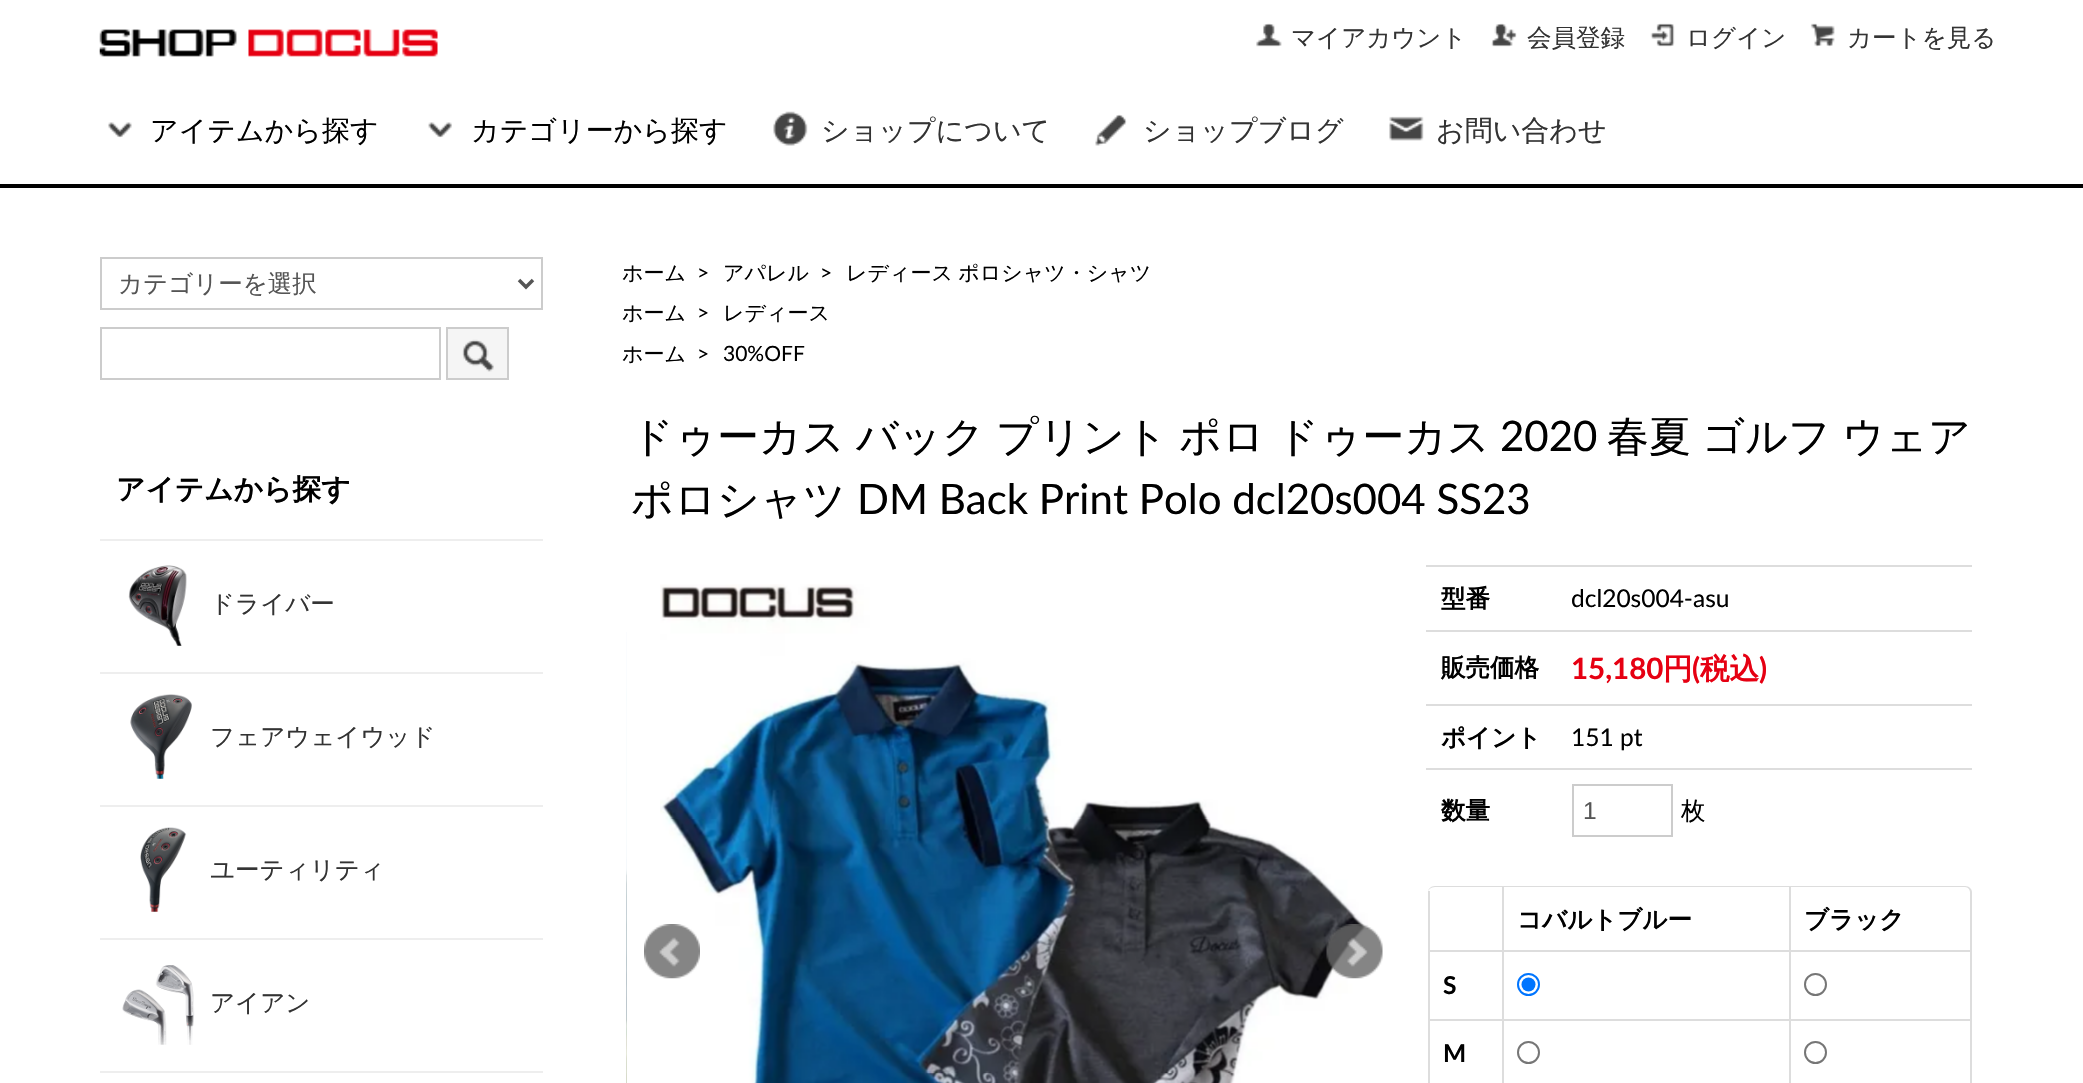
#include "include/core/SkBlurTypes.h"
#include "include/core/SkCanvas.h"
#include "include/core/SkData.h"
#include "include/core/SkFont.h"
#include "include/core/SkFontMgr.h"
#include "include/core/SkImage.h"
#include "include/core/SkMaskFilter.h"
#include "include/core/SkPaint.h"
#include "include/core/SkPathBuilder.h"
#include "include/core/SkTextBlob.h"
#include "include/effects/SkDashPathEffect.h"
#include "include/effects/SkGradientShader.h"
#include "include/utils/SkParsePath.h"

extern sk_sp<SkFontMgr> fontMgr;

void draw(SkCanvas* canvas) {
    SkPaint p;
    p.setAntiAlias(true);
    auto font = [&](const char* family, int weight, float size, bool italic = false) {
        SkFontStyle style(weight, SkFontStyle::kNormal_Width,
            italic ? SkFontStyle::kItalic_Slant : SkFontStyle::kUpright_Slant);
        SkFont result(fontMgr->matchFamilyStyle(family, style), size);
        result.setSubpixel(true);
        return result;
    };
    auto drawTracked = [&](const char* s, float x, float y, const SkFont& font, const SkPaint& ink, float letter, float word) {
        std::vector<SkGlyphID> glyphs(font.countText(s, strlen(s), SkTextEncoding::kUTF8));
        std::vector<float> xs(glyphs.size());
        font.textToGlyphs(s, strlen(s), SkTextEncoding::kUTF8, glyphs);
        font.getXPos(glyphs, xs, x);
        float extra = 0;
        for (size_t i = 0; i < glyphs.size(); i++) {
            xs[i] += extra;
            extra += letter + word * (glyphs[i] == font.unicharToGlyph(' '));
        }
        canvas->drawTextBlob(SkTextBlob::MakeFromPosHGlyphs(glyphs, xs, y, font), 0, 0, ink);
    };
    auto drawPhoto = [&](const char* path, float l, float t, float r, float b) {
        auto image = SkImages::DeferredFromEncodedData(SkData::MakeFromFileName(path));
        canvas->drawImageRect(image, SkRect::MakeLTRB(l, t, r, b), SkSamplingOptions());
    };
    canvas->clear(0xFFFFFFFF);
    drawPhoto("media/1.png", 1256, 23, 1282, 47);
    auto font1 = font("WenQuanYi Zen Hei", 500, 24.5f);
    p.setColor(0xFF333333);
    canvas->drawString("マイアカウント", 1291, 46, font1, p);
    drawPhoto("media/2.png", 1491, 23, 1517, 47);
    canvas->drawString("会員登録", 1527, 46, font1, p);
    drawPhoto("media/3.png", 1650, 23, 1675, 47);
    canvas->drawString("ログイン", 1686, 46, font1, p);
    drawPhoto("media/4.png", 1810, 23, 1835, 47);
    canvas->drawString("カートを見る", 1847, 46, font1, p);
    drawPhoto("media/5.png", 99, 29, 438, 57);
    drawPhoto("media/6.png", 108, 122, 132, 138);
    auto font2 = font("WenQuanYi Zen Hei", 500, 28);
    p.setColor(0xFF000000);
    canvas->drawString("アイテムから探す", 150, 140, font2, p);
    drawPhoto("media/7.png", 428, 122, 452, 138);
    canvas->drawString("カテゴリーから探す", 471, 140, font2, p);
    drawPhoto("media/8.png", 773, 111, 808, 146);
    p.setColor(0xFF333333);
    canvas->drawString("ショップについて", 821, 140, font2, p);
    drawPhoto("media/9.png", 1095, 114, 1127, 146);
    canvas->drawString("ショップブログ", 1143, 140, font2, p);
    drawPhoto("media/10.png", 1389, 116, 1424, 141);
    canvas->drawString("お問い合わせ", 1436, 140, font2, p);
    p.setColor(0xFF000000);
    canvas->drawRect(SkRect::MakeLTRB(0, 184, 2083, 188), p);
    p.setStyle(SkPaint::kStroke_Style);
    p.setStrokeWidth(2);
    p.setColor(0xFFCCCCCC);
    canvas->drawRect(SkRect::MakeLTRB(101, 258, 542, 309), p);
    p.setStrokeWidth(3.5f);
    p.setColor(0xFF555555);
    canvas->drawPath(SkPathBuilder().moveTo(519, 280).lineTo(526, 287).lineTo(533, 280).detach(), p);
    p.setStyle(SkPaint::kFill_Style);
    canvas->drawString("カテゴリーを選択", 118, 292, font1, p);
    p.setStyle(SkPaint::kStroke_Style);
    p.setStrokeWidth(2);
    p.setColor(0xFFCCCCCC);
    canvas->drawRect(SkRect::MakeLTRB(101, 328, 440, 379), p);
    p.setStyle(SkPaint::kFill_Style);
    p.setColor(0xFFF5F5F5);
    canvas->drawRect(SkRect::MakeLTRB(447, 328, 508, 379), p);
    p.setStyle(SkPaint::kStroke_Style);
    p.setColor(0xFFCCCCCC);
    canvas->drawRect(SkRect::MakeLTRB(447, 328, 508, 379), p);
    drawPhoto("media/11.png", 462, 339, 494, 372);
    auto font3 = font("WenQuanYi Zen Hei", 700, 28.75f);
    p.setStyle(SkPaint::kFill_Style);
    p.setColor(0xFF000000);
    canvas->drawString("アイテムから探す", 116, 499, font3, p);
    p.setColor(0xFFEEEEEE);
    canvas->drawRect(SkRect::MakeLTRB(100, 539, 543, 541), p);
    drawPhoto("media/12.png", 128, 565, 187, 646);
    p.setColor(0xFF333333);
    canvas->drawString("ドライバー", 210, 612, font1, p);
    p.setColor(0xFFEEEEEE);
    canvas->drawRect(SkRect::MakeLTRB(100, 672, 543, 674), p);
    drawPhoto("media/13.png", 130, 694, 192, 779);
    p.setColor(0xFF333333);
    canvas->drawString("フェアウェイウッド", 210, 745, font1, p);
    p.setColor(0xFFEEEEEE);
    canvas->drawRect(SkRect::MakeLTRB(100, 805, 543, 807), p);
    drawPhoto("media/14.png", 140, 827, 187, 912);
    p.setColor(0xFF333333);
    canvas->drawString("ユーティリティ", 210, 878, font1, p);
    p.setColor(0xFFEEEEEE);
    canvas->drawRect(SkRect::MakeLTRB(100, 938, 543, 940), p);
    drawPhoto("media/15.png", 122, 965, 195, 1045);
    p.setColor(0xFF333333);
    canvas->drawString("アイアン", 210, 1011, font1, p);
    p.setColor(0xFFEEEEEE);
    canvas->drawRect(SkRect::MakeLTRB(100, 1071, 543, 1073), p);
    auto font4 = font("WenQuanYi Zen Hei", 500, 21);
    p.setColor(0xFF000000);
    canvas->drawString("ホーム", 622, 280, font4, p);
    auto font5 = font("Lato", 400, 21);
    canvas->drawString(">", 697, 280, font5, p);
    canvas->drawString("アパレル", 723, 280, font4, p);
    canvas->drawString(">", 820, 280, font5, p);
    drawTracked("レディース ポロシャツ・シャツ", 846, 280, font4, p, 0, -1);
    canvas->drawString("ホーム", 622, 320, font4, p);
    canvas->drawString(">", 697, 320, font5, p);
    canvas->drawString("レディース", 723, 320, font4, p);
    canvas->drawString("ホーム", 622, 361, font4, p);
    canvas->drawString(">", 697, 361, font5, p);
    canvas->drawString("30%OFF", 723, 361, font5, p);
    auto font6 = font("WenQuanYi Zen Hei", 500, 42);
    drawTracked("ドゥーカス バック プリント ポロ ドゥーカス", 631, 451, font6, p, 0, -1.5f);
    auto font7 = font("Lato", 400, 42);
    canvas->drawString("2020", 1500, 451, font7, p);
    drawTracked("春夏 ゴルフ ウェア", 1607, 451, font6, p, 0, -1.5f);
    canvas->drawString("ポロシャツ", 631, 514, font6, p);
    canvas->drawString("DM Back Print Polo dcl20s004 SS23", 857, 514, font7, p);
    drawPhoto("media/16.png", 626, 632, 627, 1083);
    drawPhoto("media/17.png", 660, 584, 1368, 1083);
    drawPhoto("media/18.png", 644, 924, 700, 979);
    drawPhoto("media/19.png", 1326, 924, 1383, 979);
    auto font8 = font("WenQuanYi Zen Hei", 700, 24.5f);
    canvas->drawString("型番", 1441, 607, font8, p);
    p.setColor(0xFFDDDDDD);
    canvas->drawRect(SkRect::MakeLTRB(1426, 565, 1972, 567), p);
    auto font9 = font("Lato", 400, 24.5f);
    p.setColor(0xFF000000);
    canvas->drawString("dcl20s004-asu", 1571, 607, font9, p);
    canvas->drawString("販売価格", 1441, 676, font8, p);
    p.setColor(0xFFDDDDDD);
    canvas->drawRect(SkRect::MakeLTRB(1426, 630, 1972, 632), p);
    auto font10 = font("Lato", 700, 29.5f);
    p.setColor(0xFFE60012);
    canvas->drawString("15,180", 1571, 679, font10, p);
    auto font11 = font("WenQuanYi Zen Hei", 700, 29.5f);
    canvas->drawString("円", 1663, 679, font11, p);
    canvas->drawString("(", 1692, 679, font10, p);
    canvas->drawString("税込", 1700, 679, font11, p);
    canvas->drawString(")", 1759, 679, font10, p);
    p.setColor(0xFF000000);
    canvas->drawString("ポイント", 1441, 746, font8, p);
    p.setColor(0xFFDDDDDD);
    canvas->drawRect(SkRect::MakeLTRB(1426, 704, 1972, 706), p);
    p.setColor(0xFF000000);
    canvas->drawString("151 pt", 1571, 746, font9, p);
    canvas->drawString("数量", 1441, 819, font8, p);
    p.setColor(0xFFDDDDDD);
    canvas->drawRect(SkRect::MakeLTRB(1426, 768, 1972, 770), p);
    p.setStyle(SkPaint::kStroke_Style);
    p.setColor(0xFFCCCCCC);
    canvas->drawRect(SkRect::MakeLTRB(1573, 785, 1672, 836), p);
    auto font12 = font("Liberation Sans", 400, 24.5f);
    p.setStyle(SkPaint::kFill_Style);
    p.setColor(0xFF555555);
    canvas->drawString("1", 1583, 819, font12, p);
    p.setColor(0xFF000000);
    canvas->drawString("枚", 1681, 819, font1, p);
    p.setColor(0xFFDDDDDD);
    canvas->drawPath(SkPathBuilder(SkPathFillType::kEvenOdd).moveTo(1435, 886).lineTo(1965, 886).cubicTo(1969, 886, 1972, 889, 1972, 892).lineTo(1972, 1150).cubicTo(1972, 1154, 1969, 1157, 1965, 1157).lineTo(1435, 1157).cubicTo(1431, 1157, 1428, 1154, 1428, 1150).lineTo(1428, 892).cubicTo(1428, 889, 1431, 886, 1435, 886).close().moveTo(1435, 887).lineTo(1965, 887).cubicTo(1968, 887, 1970, 890, 1970, 892).lineTo(1970, 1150).cubicTo(1970, 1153, 1968, 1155, 1965, 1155).lineTo(1435, 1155).cubicTo(1431, 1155, 1428, 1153, 1428, 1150).lineTo(1428, 892).cubicTo(1428, 890, 1431, 887, 1435, 887).close().detach(), p);
    canvas->drawRect(SkRect::MakeLTRB(1428, 891, 1430, 950), p);
    canvas->drawRect(SkRect::MakeLTRB(1502, 887, 1504, 950), p);
    p.setColor(0xFF000000);
    canvas->drawString("コバルトブルー", 1517, 928, font8, p);
    p.setColor(0xFFDDDDDD);
    canvas->drawRect(SkRect::MakeLTRB(1789, 887, 1791, 950), p);
    p.setColor(0xFF000000);
    canvas->drawString("ブラック", 1804, 928, font8, p);
    p.setColor(0xFFDDDDDD);
    canvas->drawRect(SkRect::MakeLTRB(1428, 950, 1971, 952), p);
    canvas->drawRect(SkRect::MakeLTRB(1428, 950, 1430, 1019), p);
    auto font13 = font("Lato", 700, 24.5f);
    p.setColor(0xFF000000);
    canvas->drawString("S", 1443, 994, font13, p);
    p.setColor(0xFFDDDDDD);
    canvas->drawRect(SkRect::MakeLTRB(1502, 950, 1504, 1019), p);
    p.setStyle(SkPaint::kStroke_Style);
    p.setColor(0xFF0075FF);
    canvas->drawCircle(1528.5f, 984.5f, 10.5f, p);
    p.setStyle(SkPaint::kFill_Style);
    canvas->drawCircle(1528.5f, 984.5f, 7, p);
    p.setColor(0xFFDDDDDD);
    canvas->drawRect(SkRect::MakeLTRB(1789, 950, 1791, 1019), p);
    p.setStyle(SkPaint::kStroke_Style);
    p.setColor(0xFF767676);
    canvas->drawCircle(1815.5f, 984.5f, 10.5f, p);
    p.setStyle(SkPaint::kFill_Style);
    p.setColor(0xFFDDDDDD);
    canvas->drawRect(SkRect::MakeLTRB(1428, 1019, 1971, 1021), p);
    canvas->drawRect(SkRect::MakeLTRB(1428, 1019, 1430, 1083), p);
    p.setColor(0xFF000000);
    canvas->drawString("M", 1443, 1062, font13, p);
    p.setColor(0xFFDDDDDD);
    canvas->drawRect(SkRect::MakeLTRB(1502, 1019, 1504, 1083), p);
    p.setStyle(SkPaint::kStroke_Style);
    p.setColor(0xFF767676);
    canvas->drawCircle(1528.5f, 1052.5f, 10.5f, p);
    p.setStyle(SkPaint::kFill_Style);
    p.setColor(0xFFDDDDDD);
    canvas->drawRect(SkRect::MakeLTRB(1789, 1019, 1791, 1083), p);
    p.setStyle(SkPaint::kStroke_Style);
    p.setColor(0xFF767676);
    canvas->drawCircle(1815.5f, 1052.5f, 10.5f, p);
}
